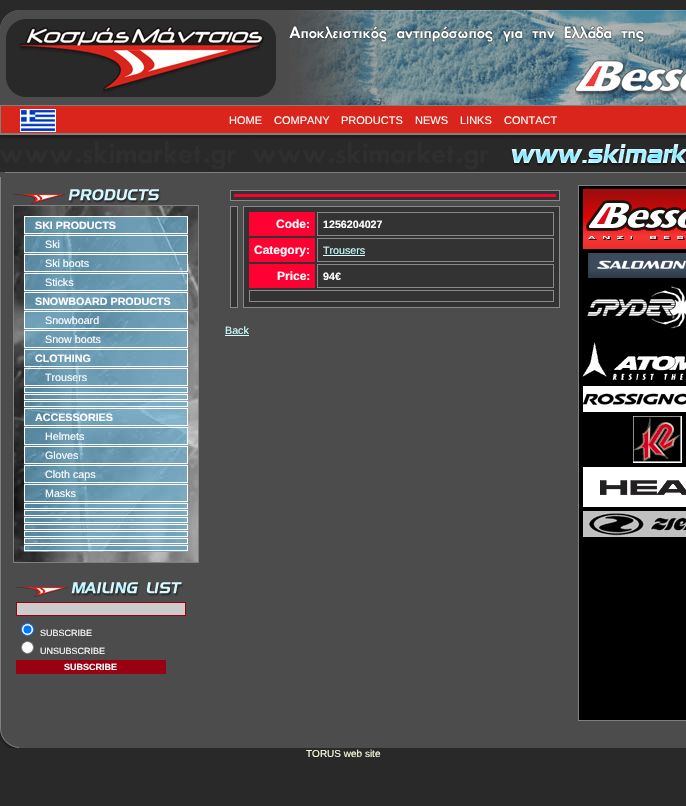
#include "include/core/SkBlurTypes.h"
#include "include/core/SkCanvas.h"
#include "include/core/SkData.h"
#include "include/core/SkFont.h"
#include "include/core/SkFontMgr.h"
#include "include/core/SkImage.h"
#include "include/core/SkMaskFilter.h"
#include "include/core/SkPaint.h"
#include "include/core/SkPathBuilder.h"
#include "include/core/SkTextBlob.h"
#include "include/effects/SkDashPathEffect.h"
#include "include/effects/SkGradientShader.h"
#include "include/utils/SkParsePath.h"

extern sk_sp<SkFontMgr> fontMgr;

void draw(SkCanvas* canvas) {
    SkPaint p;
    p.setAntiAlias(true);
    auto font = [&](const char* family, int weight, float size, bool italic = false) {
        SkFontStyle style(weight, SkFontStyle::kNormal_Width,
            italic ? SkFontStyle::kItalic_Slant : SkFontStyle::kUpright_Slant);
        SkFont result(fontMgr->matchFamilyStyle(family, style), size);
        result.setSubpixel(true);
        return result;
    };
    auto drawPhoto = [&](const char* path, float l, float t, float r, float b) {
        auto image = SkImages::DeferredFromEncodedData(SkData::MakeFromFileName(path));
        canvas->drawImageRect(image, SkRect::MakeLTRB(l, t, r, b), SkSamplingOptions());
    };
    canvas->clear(0xFF292929);
    p.setColor(0xFF4D4C4C);
    canvas->drawRect(SkRect::MakeLTRB(0, 10, 289, 105), p);
    drawPhoto("media/1.png", 0, 10, 276, 97);
    drawPhoto("media/2.png", 289, 10, 686, 105);
    drawPhoto("media/3.png", 0, 105, 20, 135);
    drawPhoto("media/4.png", 20, 105, 686, 135);
    drawPhoto("media/5.png", 20, 109, 56, 132);
    auto font1 = font("Liberation Sans", 400, 11);
    p.setColor(0xFFFFFFFF);
    {
        const struct { const char* s; float x, y; } items[] = {
            {"HOME", 229, 124},
            {"COMPANY", 274, 124},
            {"PRODUCTS", 341, 124},
            {"NEWS", 415, 124},
            {"LINKS", 460, 124},
            {"CONTACT", 504, 124},
        };
        for (auto [s, x, y] : items) {
            canvas->drawString(s, x, y, font1, p);
        }
    }
    drawPhoto("media/6.png", 0, 135, 686, 169);
    drawPhoto("media/7.png", 507, 142, 686, 166);
    {
        const struct { float l, t, r, b; SkColor color; } items[] = {
            {0, 172, 686, 729, 0xFF4D4C4C},
            {5, 172, 686, 173, 0xFF808080},
            {0, 177, 1, 729, 0xFF808080},
        };
        for (auto [l, t, r, b, color] : items) {
            p.setColor(color);
            canvas->drawRect(SkRect::MakeLTRB(l, t, r, b), p);
        }
    }
    drawPhoto("media/8.png", 13, 189, 161, 204);
    drawPhoto("media/9.png", 14, 206, 198, 562);
    p.setStyle(SkPaint::kStroke_Style);
    p.setStrokeWidth(1);
    canvas->drawRect(SkRect::MakeLTRB(13.5f, 205.5f, 198.5f, 562.5f), p);
    drawPhoto("media/10.png", 24, 217, 188, 552);
    p.setColor(0xFFFFFFFF);
    canvas->drawRect(SkRect::MakeLTRB(24.5f, 216.5f, 187.5f, 233.5f), p);
    auto font2 = font("Liberation Sans", 700, 10.7f);
    p.setStyle(SkPaint::kFill_Style);
    canvas->drawString("SKI PRODUCTS", 35, 229, font2, p);
    p.setStyle(SkPaint::kStroke_Style);
    canvas->drawRect(SkRect::MakeLTRB(24.5f, 235.5f, 187.5f, 252.5f), p);
    auto font3 = font("Liberation Sans", 400, 10.7f);
    p.setStyle(SkPaint::kFill_Style);
    canvas->drawString("Ski", 45, 248, font3, p);
    p.setStyle(SkPaint::kStroke_Style);
    canvas->drawRect(SkRect::MakeLTRB(24.5f, 254.5f, 187.5f, 271.5f), p);
    p.setStyle(SkPaint::kFill_Style);
    canvas->drawString("Ski boots", 45, 267, font3, p);
    p.setStyle(SkPaint::kStroke_Style);
    canvas->drawRect(SkRect::MakeLTRB(24.5f, 273.5f, 187.5f, 290.5f), p);
    p.setStyle(SkPaint::kFill_Style);
    canvas->drawString("Sticks", 45, 286, font3, p);
    p.setStyle(SkPaint::kStroke_Style);
    canvas->drawRect(SkRect::MakeLTRB(24.5f, 292.5f, 187.5f, 309.5f), p);
    p.setStyle(SkPaint::kFill_Style);
    canvas->drawString("SNOWBOARD PRODUCTS", 35, 305, font2, p);
    p.setStyle(SkPaint::kStroke_Style);
    canvas->drawRect(SkRect::MakeLTRB(24.5f, 311.5f, 187.5f, 328.5f), p);
    p.setStyle(SkPaint::kFill_Style);
    canvas->drawString("Snowboard", 45, 324, font3, p);
    p.setStyle(SkPaint::kStroke_Style);
    canvas->drawRect(SkRect::MakeLTRB(24.5f, 330.5f, 187.5f, 347.5f), p);
    p.setStyle(SkPaint::kFill_Style);
    canvas->drawString("Snow boots", 45, 343, font3, p);
    p.setStyle(SkPaint::kStroke_Style);
    canvas->drawRect(SkRect::MakeLTRB(24.5f, 349.5f, 187.5f, 366.5f), p);
    p.setStyle(SkPaint::kFill_Style);
    canvas->drawString("CLOTHING", 35, 362, font2, p);
    p.setStyle(SkPaint::kStroke_Style);
    canvas->drawRect(SkRect::MakeLTRB(24.5f, 368.5f, 187.5f, 385.5f), p);
    p.setStyle(SkPaint::kFill_Style);
    canvas->drawString("Trousers", 45, 381, font3, p);
    p.setStyle(SkPaint::kStroke_Style);
    canvas->drawRect(SkRect::MakeLTRB(24.5f, 387.5f, 187.5f, 392.5f), p);
    canvas->drawRect(SkRect::MakeLTRB(24.5f, 394.5f, 187.5f, 399.5f), p);
    canvas->drawRect(SkRect::MakeLTRB(24.5f, 401.5f, 187.5f, 406.5f), p);
    canvas->drawRect(SkRect::MakeLTRB(24.5f, 408.5f, 187.5f, 425.5f), p);
    p.setStyle(SkPaint::kFill_Style);
    canvas->drawString("ACCESSORIES", 35, 421, font2, p);
    p.setStyle(SkPaint::kStroke_Style);
    canvas->drawRect(SkRect::MakeLTRB(24.5f, 427.5f, 187.5f, 444.5f), p);
    p.setStyle(SkPaint::kFill_Style);
    canvas->drawString("Helmets", 45, 440, font3, p);
    p.setStyle(SkPaint::kStroke_Style);
    canvas->drawRect(SkRect::MakeLTRB(24.5f, 446.5f, 187.5f, 463.5f), p);
    p.setStyle(SkPaint::kFill_Style);
    canvas->drawString("Gloves", 45, 459, font3, p);
    p.setStyle(SkPaint::kStroke_Style);
    canvas->drawRect(SkRect::MakeLTRB(24.5f, 465.5f, 187.5f, 482.5f), p);
    p.setStyle(SkPaint::kFill_Style);
    canvas->drawString("Cloth caps", 45, 478, font3, p);
    p.setStyle(SkPaint::kStroke_Style);
    canvas->drawRect(SkRect::MakeLTRB(24.5f, 484.5f, 187.5f, 501.5f), p);
    p.setStyle(SkPaint::kFill_Style);
    canvas->drawString("Masks", 45, 497, font3, p);
    p.setStyle(SkPaint::kStroke_Style);
    canvas->drawRect(SkRect::MakeLTRB(24.5f, 503.5f, 187.5f, 508.5f), p);
    canvas->drawRect(SkRect::MakeLTRB(24.5f, 510.5f, 187.5f, 515.5f), p);
    canvas->drawRect(SkRect::MakeLTRB(24.5f, 517.5f, 187.5f, 522.5f), p);
    canvas->drawRect(SkRect::MakeLTRB(24.5f, 524.5f, 187.5f, 529.5f), p);
    canvas->drawRect(SkRect::MakeLTRB(24.5f, 531.5f, 187.5f, 536.5f), p);
    canvas->drawRect(SkRect::MakeLTRB(24.5f, 538.5f, 187.5f, 543.5f), p);
    canvas->drawRect(SkRect::MakeLTRB(24.5f, 545.5f, 187.5f, 550.5f), p);
    drawPhoto("media/11.png", 16, 582, 184, 597);
    p.setStyle(SkPaint::kFill_Style);
    p.setColor(0xFFCCCCCC);
    canvas->drawRect(SkRect::MakeLTRB(16.5f, 602.5f, 185.5f, 615.5f), p);
    p.setStyle(SkPaint::kStroke_Style);
    p.setColor(0xFF990011);
    canvas->drawRect(SkRect::MakeLTRB(16.5f, 602.5f, 185.5f, 615.5f), p);
    p.setStyle(SkPaint::kFill_Style);
    p.setColor(0xFFFFFFFF);
    canvas->drawCircle(27.5f, 629.5f, 6, p);
    p.setStyle(SkPaint::kStroke_Style);
    p.setColor(0xFF0075FF);
    canvas->drawCircle(27.5f, 629.5f, 6, p);
    p.setStyle(SkPaint::kFill_Style);
    canvas->drawCircle(27.5f, 629.5f, 4, p);
    auto font4 = font("Liberation Sans", 400, 9);
    p.setColor(0xFFFFFFFF);
    canvas->drawString("SUBSCRIBE", 40, 636, font4, p);
    canvas->drawCircle(27.5f, 647.5f, 6, p);
    p.setStyle(SkPaint::kStroke_Style);
    p.setColor(0xFF767676);
    canvas->drawCircle(27.5f, 647.5f, 6, p);
    p.setStyle(SkPaint::kFill_Style);
    p.setColor(0xFFFFFFFF);
    canvas->drawString("UNSUBSCRIBE", 40, 654, font4, p);
    p.setColor(0xFF990011);
    canvas->drawRect(SkRect::MakeLTRB(16, 660, 166, 674), p);
    auto font5 = font("Liberation Sans", 700, 9);
    p.setColor(0xFFFFFFFF);
    canvas->drawString("SUBSCRIBE", 64, 670, font5, p);
    p.setColor(0xFF333333);
    canvas->drawRect(SkRect::MakeLTRB(230.5f, 190.5f, 559.5f, 200.5f), p);
    p.setStyle(SkPaint::kStroke_Style);
    p.setColor(0xFF888888);
    canvas->drawRect(SkRect::MakeLTRB(230.5f, 190.5f, 559.5f, 200.5f), p);
    p.setStyle(SkPaint::kFill_Style);
    p.setColor(0xFFFF0033);
    canvas->drawRect(SkRect::MakeLTRB(234, 194, 556, 197), p);
    p.setColor(0xFF333333);
    canvas->drawRect(SkRect::MakeLTRB(230.5f, 206.5f, 237.5f, 307.5f), p);
    p.setStyle(SkPaint::kStroke_Style);
    p.setColor(0xFF888888);
    canvas->drawRect(SkRect::MakeLTRB(230.5f, 206.5f, 237.5f, 307.5f), p);
    p.setStyle(SkPaint::kFill_Style);
    p.setColor(0xFF333333);
    canvas->drawRect(SkRect::MakeLTRB(243.5f, 206.5f, 559.5f, 307.5f), p);
    p.setStyle(SkPaint::kStroke_Style);
    p.setColor(0xFF888888);
    canvas->drawRect(SkRect::MakeLTRB(243.5f, 206.5f, 559.5f, 307.5f), p);
    p.setStyle(SkPaint::kFill_Style);
    p.setColor(0xFFFF0033);
    canvas->drawRect(SkRect::MakeLTRB(249, 212, 315, 236), p);
    auto font6 = font("Liberation Sans", 700, 12);
    p.setColor(0xFFFFFFFF);
    canvas->drawString("Code:", 276, 228, font6, p);
    p.setStyle(SkPaint::kStroke_Style);
    p.setColor(0xFF888888);
    canvas->drawRect(SkRect::MakeLTRB(317.5f, 212.5f, 553.5f, 235.5f), p);
    p.setStyle(SkPaint::kFill_Style);
    p.setColor(0xFFFFFFFF);
    canvas->drawString("1256204027", 323, 228, font2, p);
    p.setColor(0xFFFF0033);
    canvas->drawRect(SkRect::MakeLTRB(249, 238, 315, 262), p);
    p.setColor(0xFFFFFFFF);
    canvas->drawString("Category:", 254, 254, font6, p);
    p.setStyle(SkPaint::kStroke_Style);
    p.setColor(0xFF888888);
    canvas->drawRect(SkRect::MakeLTRB(317.5f, 238.5f, 553.5f, 261.5f), p);
    p.setStyle(SkPaint::kFill_Style);
    p.setColor(0xFFCCFFFF);
    canvas->drawString("Trousers", 323, 254, font3, p);
    canvas->drawRect(SkRect::MakeLTRB(323, 255, 365, 256), p);
    p.setColor(0xFFFF0033);
    canvas->drawRect(SkRect::MakeLTRB(249, 264, 315, 288), p);
    p.setColor(0xFFFFFFFF);
    canvas->drawString("Price:", 277, 280, font6, p);
    p.setStyle(SkPaint::kStroke_Style);
    p.setColor(0xFF888888);
    canvas->drawRect(SkRect::MakeLTRB(317.5f, 264.5f, 553.5f, 287.5f), p);
    p.setStyle(SkPaint::kFill_Style);
    p.setColor(0xFFFFFFFF);
    canvas->drawString("94€", 323, 280, font2, p);
    p.setStyle(SkPaint::kStroke_Style);
    p.setColor(0xFF888888);
    canvas->drawRect(SkRect::MakeLTRB(249.5f, 290.5f, 553.5f, 301.5f), p);
    p.setStyle(SkPaint::kFill_Style);
    p.setColor(0xFFCCFFFF);
    canvas->drawString("Back", 225, 334, font3, p);
    canvas->drawRect(SkRect::MakeLTRB(225, 335, 249, 336), p);
    p.setColor(0xFF000000);
    canvas->drawRect(SkRect::MakeLTRB(578.5f, 185.5f, 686.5f, 720.5f), p);
    p.setStyle(SkPaint::kStroke_Style);
    p.setColor(0xFF808080);
    canvas->drawRect(SkRect::MakeLTRB(578.5f, 185.5f, 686.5f, 720.5f), p);
    drawPhoto("media/12.png", 583, 189, 686, 249);
    drawPhoto("media/13.png", 588, 253, 686, 278);
    drawPhoto("media/14.png", 587, 286, 686, 329);
    drawPhoto("media/15.png", 582, 342, 686, 380);
    drawPhoto("media/16.png", 583, 386, 686, 412);
    drawPhoto("media/17.png", 633, 416, 682, 463);
    drawPhoto("media/18.png", 583, 467, 686, 507);
    drawPhoto("media/19.png", 583, 511, 686, 537);
    drawPhoto("media/20.png", 0, 729, 19, 748);
    p.setStyle(SkPaint::kFill_Style);
    p.setColor(0xFF4D4C4C);
    canvas->drawRect(SkRect::MakeLTRB(19, 729, 686, 748), p);
    auto font7 = font("Liberation Sans", 400, 10);
    p.setColor(0xFFFFFFDD);
    canvas->drawString("TORUS web site", 306, 757, font7, p);
}
